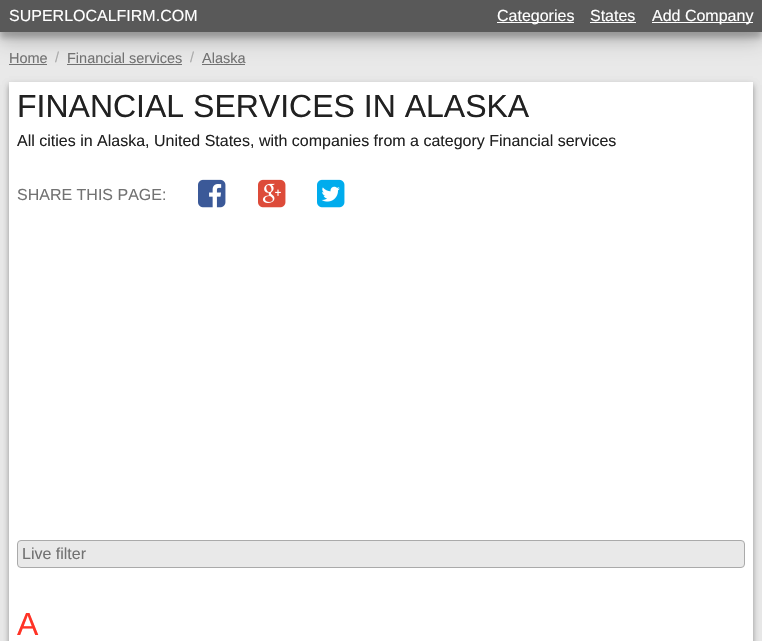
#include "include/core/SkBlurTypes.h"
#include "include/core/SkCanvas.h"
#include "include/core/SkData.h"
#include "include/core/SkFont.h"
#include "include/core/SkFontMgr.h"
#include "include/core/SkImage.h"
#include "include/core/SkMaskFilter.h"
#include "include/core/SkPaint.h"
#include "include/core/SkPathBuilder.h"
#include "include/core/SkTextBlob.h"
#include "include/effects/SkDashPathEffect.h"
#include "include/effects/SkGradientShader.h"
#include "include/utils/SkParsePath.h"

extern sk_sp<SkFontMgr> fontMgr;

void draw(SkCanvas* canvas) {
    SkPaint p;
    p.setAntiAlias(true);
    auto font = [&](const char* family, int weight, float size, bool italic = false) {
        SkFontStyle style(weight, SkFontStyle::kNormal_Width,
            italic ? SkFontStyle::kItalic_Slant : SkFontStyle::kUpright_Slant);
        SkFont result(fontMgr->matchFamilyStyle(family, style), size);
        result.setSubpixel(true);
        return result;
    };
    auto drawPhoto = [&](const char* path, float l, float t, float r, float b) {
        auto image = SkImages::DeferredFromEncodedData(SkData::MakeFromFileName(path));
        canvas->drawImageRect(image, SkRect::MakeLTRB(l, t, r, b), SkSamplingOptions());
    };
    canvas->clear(0xFFE9E9E9);
    p.setColor(0x3B000000);
    p.setMaskFilter(SkMaskFilter::MakeBlur(kNormal_SkBlurStyle, 3));
    canvas->drawRect(SkRect::MakeLTRB(0, 6, 762, 38), p);
    p.setMaskFilter(nullptr);
    {
        const struct { float l, t, r, b; SkColor color; } items[] = {
            {9, 64, 47, 65, 0xFF727272},
            {67, 64, 182, 65, 0xFF727272},
            {202, 64, 245, 65, 0xFF727272},
        };
        for (auto [l, t, r, b, color] : items) {
            p.setColor(color);
            canvas->drawRect(SkRect::MakeLTRB(l, t, r, b), p);
        }
    }
    p.setColor(0x30000000);
    p.setMaskFilter(SkMaskFilter::MakeBlur(kNormal_SkBlurStyle, 10));
    canvas->drawRect(SkRect::MakeLTRB(0, 10, 762, 42), p);
    p.setMaskFilter(nullptr);
    p.setColor(0xFF595959);
    canvas->drawRect(SkRect::MakeLTRB(0, 0, 762, 32), p);
    auto font1 = font("Liberation Sans", 400, 16);
    p.setColor(0xFFFFFFFF);
    canvas->drawString("SUPERLOCALFIRM.COM", 9, 21, font1, p);
    canvas->drawRect(SkRect::MakeLTRB(497, 22, 574, 23), p);
    canvas->drawString("Categories", 497, 21, font1, p);
    canvas->drawString("States", 590, 21, font1, p);
    canvas->drawRect(SkRect::MakeLTRB(590, 22, 636, 23), p);
    canvas->drawRect(SkRect::MakeLTRB(652, 22, 753, 23), p);
    canvas->drawString("Add Company", 652, 21, font1, p);
    auto font2 = font("Liberation Sans", 400, 14.5f);
    p.setColor(0xFF727272);
    canvas->drawString("Home", 9, 63, font2, p);
    p.setColor(0xFFAAAAAA);
    canvas->drawString("/", 55, 62, font2, p);
    p.setColor(0xFF727272);
    canvas->drawString("Financial services", 67, 63, font2, p);
    p.setColor(0xFFAAAAAA);
    canvas->drawString("/", 190, 62, font2, p);
    p.setColor(0xFF727272);
    canvas->drawString("Alaska", 202, 63, font2, p);
    p.setColor(0x3B000000);
    p.setMaskFilter(SkMaskFilter::MakeBlur(kNormal_SkBlurStyle, 3));
    canvas->drawRect(SkRect::MakeLTRB(9, 85, 753, 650), p);
    p.setMaskFilter(nullptr);
    p.setColor(0x29000000);
    p.setMaskFilter(SkMaskFilter::MakeBlur(kNormal_SkBlurStyle, 3));
    canvas->drawRect(SkRect::MakeLTRB(9, 85, 753, 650), p);
    p.setMaskFilter(nullptr);
    p.setColor(0xFFFFFFFF);
    canvas->drawRect(SkRect::MakeLTRB(9, 82, 753, 641), p);
    auto font3 = font("Liberation Sans", 400, 32);
    p.setColor(0xFF212121);
    canvas->drawString("FINANCIAL SERVICES IN ALASKA", 17, 117, font3, p);
    canvas->drawString("All cities in Alaska, United States, with companies from a category Financial services", 17, 146, font1, p);
    p.setColor(0xFF727272);
    canvas->drawString("SHARE THIS PAGE:", 17, 200, font1, p);
    drawPhoto("media/1.png", 198, 179, 226, 208);
    drawPhoto("media/2.png", 258, 179, 286, 208);
    drawPhoto("media/3.png", 317, 179, 345, 208);
    p.setColor(0xFFE9E9E9);
    canvas->drawRoundRect(SkRect::MakeLTRB(17.5f, 540.5f, 744.5f, 567.5f), 3.5f, 3.5f, p);
    p.setStyle(SkPaint::kStroke_Style);
    p.setStrokeWidth(1);
    p.setColor(0xFFAAAAAA);
    canvas->drawRoundRect(SkRect::MakeLTRB(17.5f, 540.5f, 744.5f, 567.5f), 3.5f, 3.5f, p);
    p.setStyle(SkPaint::kFill_Style);
    p.setColor(0xFF727272);
    canvas->drawString("Live filter", 22, 559, font1, p);
    p.setColor(0xFFFF3326);
    canvas->drawString("A", 17, 635, font3, p);
}
